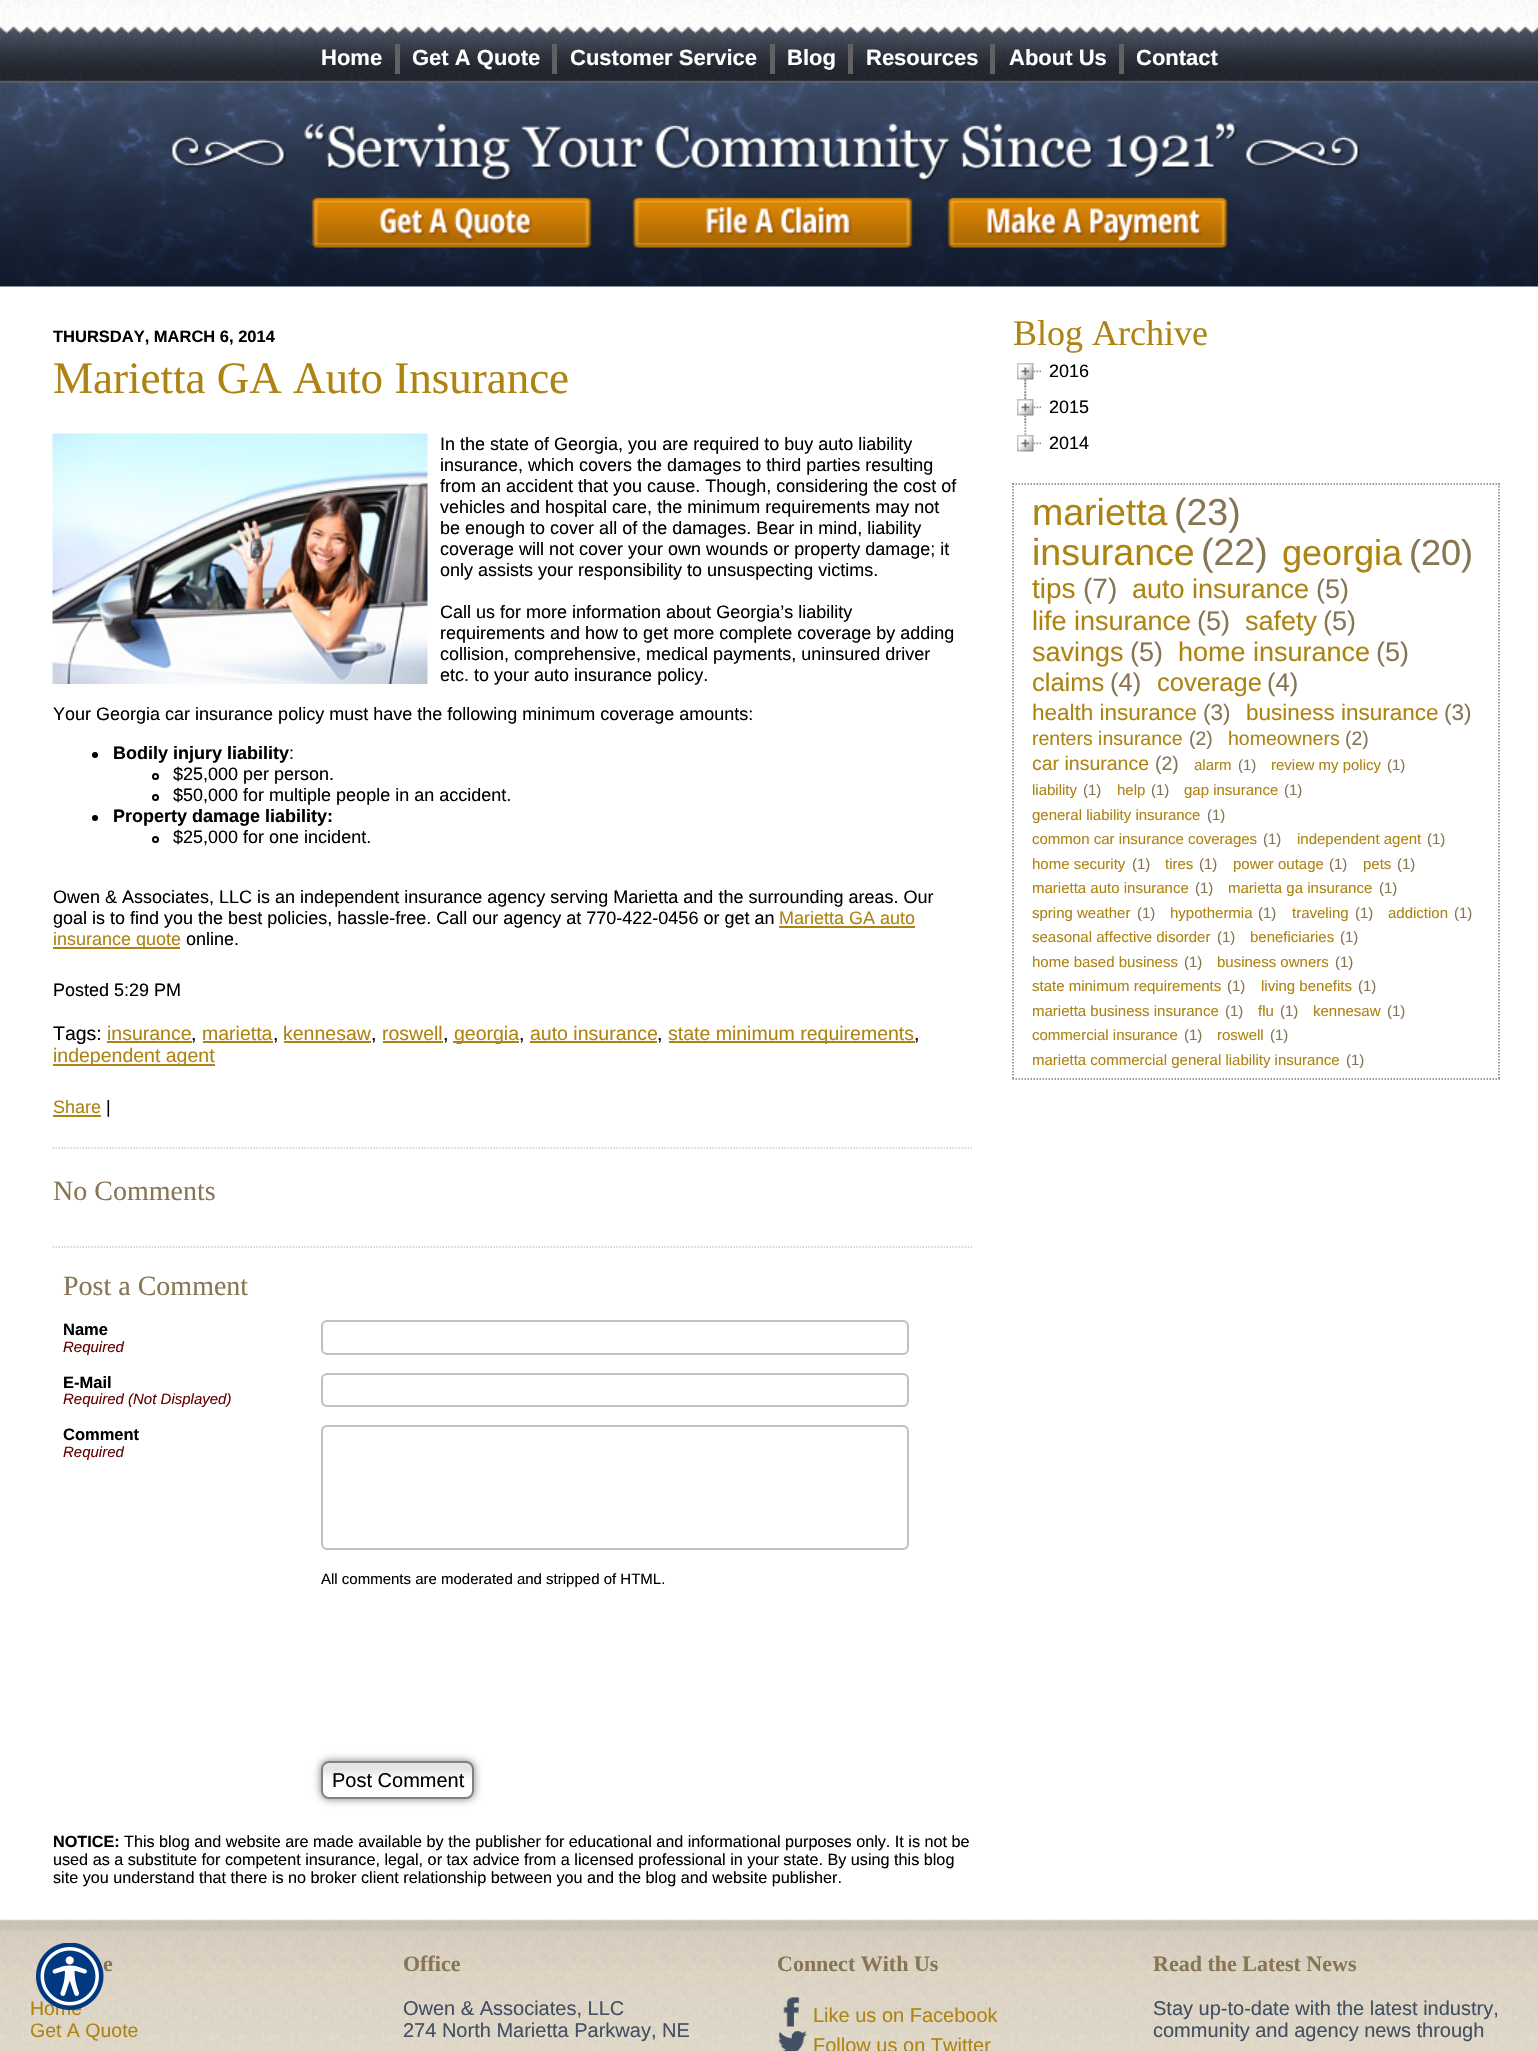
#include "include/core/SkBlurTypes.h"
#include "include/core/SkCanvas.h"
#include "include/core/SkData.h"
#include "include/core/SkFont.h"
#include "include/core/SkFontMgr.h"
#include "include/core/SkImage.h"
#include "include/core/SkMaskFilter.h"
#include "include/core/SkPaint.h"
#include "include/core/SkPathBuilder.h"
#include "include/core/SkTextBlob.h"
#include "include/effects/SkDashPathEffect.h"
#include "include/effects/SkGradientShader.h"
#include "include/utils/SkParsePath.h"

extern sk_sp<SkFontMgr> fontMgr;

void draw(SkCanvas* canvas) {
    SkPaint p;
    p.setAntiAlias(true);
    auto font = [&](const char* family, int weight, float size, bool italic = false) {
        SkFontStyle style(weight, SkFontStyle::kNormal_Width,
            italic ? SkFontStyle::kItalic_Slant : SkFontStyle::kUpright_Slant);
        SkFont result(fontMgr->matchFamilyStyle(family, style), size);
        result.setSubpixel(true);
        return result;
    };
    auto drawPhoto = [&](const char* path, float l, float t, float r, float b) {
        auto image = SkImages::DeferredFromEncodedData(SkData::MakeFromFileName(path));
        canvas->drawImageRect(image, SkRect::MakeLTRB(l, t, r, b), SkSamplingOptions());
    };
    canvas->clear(0xFFFFFFFF);
    drawPhoto("media/1.png", 0, 0, 1538, 287);
    auto font1 = font("Liberation Sans", 700, 22);
    p.setColor(0xFFFFFFFF);
    canvas->drawString("Home", 321, 65, font1, p);
    p.setColor(0xFF616161);
    canvas->drawRect(SkRect::MakeLTRB(395, 44, 400, 74), p);
    p.setColor(0xFFFFFFFF);
    canvas->drawString("Get A Quote", 412, 65, font1, p);
    p.setColor(0xFF616161);
    canvas->drawRect(SkRect::MakeLTRB(552, 44, 557, 74), p);
    p.setColor(0xFFFFFFFF);
    canvas->drawString("Customer Service", 570, 65, font1, p);
    p.setColor(0xFF616161);
    canvas->drawRect(SkRect::MakeLTRB(770, 44, 775, 74), p);
    p.setColor(0xFFFFFFFF);
    canvas->drawString("Blog", 787, 65, font1, p);
    p.setColor(0xFF616161);
    canvas->drawRect(SkRect::MakeLTRB(848, 44, 853, 74), p);
    p.setColor(0xFFFFFFFF);
    canvas->drawString("Resources", 866, 65, font1, p);
    p.setColor(0xFF616161);
    canvas->drawRect(SkRect::MakeLTRB(990, 44, 995, 74), p);
    p.setColor(0xFFFFFFFF);
    canvas->drawString("About Us", 1009, 65, font1, p);
    p.setColor(0xFF616161);
    canvas->drawRect(SkRect::MakeLTRB(1119, 44, 1124, 74), p);
    p.setColor(0xFFFFFFFF);
    canvas->drawString("Contact", 1136, 65, font1, p);
    drawPhoto("media/2.png", 172, 122, 1361, 249);
    auto font2 = font("Liberation Sans", 700, 16.5f);
    p.setColor(0xFF000000);
    canvas->drawString("THURSDAY, MARCH 6, 2014", 53, 342, font2, p);
    auto font3 = font("Liberation Serif", 400, 45);
    p.setColor(0xFFAD8312);
    canvas->drawString("Marietta GA Auto Insurance", 53, 393, font3, p);
    drawPhoto("media/3.png", 52, 433, 428, 684);
    auto font4 = font("Liberation Sans", 400, 18);
    p.setColor(0xFF000000);
    {
        const struct { const char* s; float x, y; } items[] = {
            {"In the state of Georgia, you are required to buy auto liability", 440, 450},
            {"insurance, which covers the damages to third parties resulting", 440, 471},
            {"from an accident that you cause. Though, considering the cost of", 440, 492},
            {"vehicles and hospital care, the minimum requirements may not", 440, 513},
            {"be enough to cover all of the damages. Bear in mind, liability", 440, 534},
            {"coverage will not cover your own wounds or property damage; it", 440, 555},
            {"only assists your responsibility to unsuspecting victims.", 440, 576},
            {"Call us for more information about Georgia’s liability", 440, 618},
            {"requirements and how to get more complete coverage by adding", 440, 639},
            {"collision, comprehensive, medical payments, uninsured driver", 440, 660},
            {"etc. to your auto insurance policy.", 440, 681},
            {"Your Georgia car insurance policy must have the following minimum coverage amounts:", 53, 720},
        };
        for (auto [s, x, y] : items) {
            canvas->drawString(s, x, y, font4, p);
        }
    }
    canvas->drawCircle(95, 755, 3, p);
    auto font5 = font("Liberation Sans", 700, 18);
    canvas->drawString("Bodily injury liability", 113, 759, font5, p);
    canvas->drawString(":", 289, 759, font4, p);
    p.setStyle(SkPaint::kStroke_Style);
    p.setStrokeWidth(2);
    canvas->drawCircle(155.5f, 776.5f, 2.5f, p);
    p.setStyle(SkPaint::kFill_Style);
    canvas->drawString("$25,000 per person.", 173, 780, font4, p);
    p.setStyle(SkPaint::kStroke_Style);
    canvas->drawCircle(155.5f, 797.5f, 2.5f, p);
    p.setStyle(SkPaint::kFill_Style);
    canvas->drawString("$50,000 for multiple people in an accident.", 173, 801, font4, p);
    canvas->drawCircle(95, 818, 3, p);
    canvas->drawString("Property damage liability:", 113, 822, font5, p);
    p.setStyle(SkPaint::kStroke_Style);
    canvas->drawCircle(155.5f, 839.5f, 2.5f, p);
    p.setStyle(SkPaint::kFill_Style);
    {
        const struct { const char* s; float x, y; } items[] = {
            {"$25,000 for one incident.", 173, 843},
            {"Owen & Associates, LLC is an independent insurance agency serving Marietta and the surrounding areas. Our", 53, 903},
            {"goal is to find you the best policies, hassle-free. Call our agency at 770-422-0456 or get an", 53, 924},
        };
        for (auto [s, x, y] : items) {
            canvas->drawString(s, x, y, font4, p);
        }
    }
    p.setColor(0xFFAD8312);
    canvas->drawString("Marietta GA auto", 779, 924, font4, p);
    canvas->drawRect(SkRect::MakeLTRB(779, 926, 915, 928), p);
    canvas->drawRect(SkRect::MakeLTRB(53, 947, 180, 949), p);
    canvas->drawString("insurance quote", 53, 945, font4, p);
    p.setColor(0xFF000000);
    canvas->drawString("online.", 186, 945, font4, p);
    canvas->drawString("Posted 5:29 PM", 53, 996, font4, p);
    auto font6 = font("Liberation Sans", 400, 19.5f);
    canvas->drawString("Tags:", 53, 1040, font6, p);
    p.setColor(0xFFAD8312);
    canvas->drawString("insurance", 107, 1040, font6, p);
    p.setColor(0xFF000000);
    canvas->drawString(",", 191, 1040, font6, p);
    p.setColor(0xFFAD8312);
    canvas->drawRect(SkRect::MakeLTRB(107, 1041, 192, 1043), p);
    canvas->drawString("marietta", 202, 1040, font6, p);
    p.setColor(0xFF000000);
    canvas->drawString(",", 273, 1040, font6, p);
    p.setColor(0xFFAD8312);
    canvas->drawRect(SkRect::MakeLTRB(203, 1041, 273, 1043), p);
    canvas->drawString("kennesaw", 283, 1040, font6, p);
    p.setColor(0xFF000000);
    canvas->drawString(",", 371, 1040, font6, p);
    p.setColor(0xFFAD8312);
    canvas->drawRect(SkRect::MakeLTRB(284, 1041, 371, 1043), p);
    canvas->drawString("roswell", 382, 1040, font6, p);
    p.setColor(0xFF000000);
    canvas->drawString(",", 443, 1040, font6, p);
    p.setColor(0xFFAD8312);
    canvas->drawRect(SkRect::MakeLTRB(383, 1041, 443, 1043), p);
    canvas->drawRect(SkRect::MakeLTRB(453, 1041, 519, 1043), p);
    canvas->drawString("georgia", 454, 1040, font6, p);
    p.setColor(0xFF000000);
    canvas->drawString(",", 519, 1040, font6, p);
    p.setColor(0xFFAD8312);
    canvas->drawString("auto insurance", 530, 1040, font6, p);
    p.setColor(0xFF000000);
    canvas->drawString(",", 657, 1040, font6, p);
    p.setColor(0xFFAD8312);
    canvas->drawRect(SkRect::MakeLTRB(530, 1041, 657, 1043), p);
    canvas->drawRect(SkRect::MakeLTRB(669, 1041, 915, 1043), p);
    canvas->drawString("state minimum requirements", 668, 1040, font6, p);
    p.setColor(0xFF000000);
    canvas->drawString(",", 914, 1040, font6, p);
    p.setColor(0xFFAD8312);
    canvas->drawRect(SkRect::MakeLTRB(53, 1064, 215, 1066), p);
    canvas->drawString("independent agent", 53, 1062, font6, p);
    canvas->drawString("Share", 53, 1113, font4, p);
    canvas->drawRect(SkRect::MakeLTRB(53, 1115, 101, 1117), p);
    p.setColor(0xFF000000);
    canvas->drawString("|", 106, 1113, font4, p);
    p.setStyle(SkPaint::kStroke_Style);
    p.setStrokeWidth(1.5f);
    p.setColor(0xFFCCCCCC);
    p.setPathEffect(SkDashPathEffect::Make({{1.5f, 1.5f}}, 0));
    canvas->drawPath(SkPathBuilder().moveTo(52.5f, 1148).lineTo(972, 1148).detach(), p);
    p.setPathEffect(nullptr);
    auto font7 = font("Liberation Serif", 400, 28);
    p.setStyle(SkPaint::kFill_Style);
    p.setColor(0xFF877554);
    canvas->drawString("No Comments", 53, 1200, font7, p);
    p.setStyle(SkPaint::kStroke_Style);
    p.setColor(0xFFCCCCCC);
    p.setPathEffect(SkDashPathEffect::Make({{1.5f, 1.5f}}, 0));
    canvas->drawPath(SkPathBuilder().moveTo(52.5f, 1247).lineTo(972, 1247).detach(), p);
    p.setPathEffect(nullptr);
    p.setStyle(SkPaint::kFill_Style);
    p.setColor(0xFF877554);
    canvas->drawString("Post a Comment", 63, 1295, font7, p);
    p.setColor(0xFF000000);
    canvas->drawString("Name", 63, 1335, font2, p);
    auto font8 = font("Liberation Sans", 400, 15, true);
    p.setColor(0xFF660000);
    canvas->drawString("Required", 63, 1352, font8, p);
    p.setStyle(SkPaint::kStroke_Style);
    p.setStrokeWidth(2);
    p.setColor(0xFFC0C0C0);
    canvas->drawRoundRect(SkRect::MakeLTRB(322, 1321, 908, 1354), 5, 5, p);
    p.setStyle(SkPaint::kFill_Style);
    p.setColor(0xFF000000);
    canvas->drawString("E-Mail", 63, 1388, font2, p);
    p.setColor(0xFF660000);
    canvas->drawString("Required (Not Displayed)", 63, 1404, font8, p);
    p.setStyle(SkPaint::kStroke_Style);
    p.setColor(0xFFC0C0C0);
    canvas->drawRoundRect(SkRect::MakeLTRB(322, 1374, 908, 1406), 5, 5, p);
    p.setStyle(SkPaint::kFill_Style);
    p.setColor(0xFF000000);
    canvas->drawString("Comment", 63, 1440, font2, p);
    p.setColor(0xFF660000);
    canvas->drawString("Required", 63, 1457, font8, p);
    p.setStyle(SkPaint::kStroke_Style);
    p.setColor(0xFFC0C0C0);
    canvas->drawRoundRect(SkRect::MakeLTRB(322, 1426, 908, 1549), 5, 5, p);
    auto font9 = font("Liberation Sans", 400, 15);
    p.setStyle(SkPaint::kFill_Style);
    p.setColor(0xFF000000);
    canvas->drawString("All comments are moderated and stripped of HTML.", 321, 1584, font9, p);
    p.setColor(0xFF808080);
    p.setMaskFilter(SkMaskFilter::MakeBlur(kNormal_SkBlurStyle, 4.5f));
    canvas->drawRoundRect(SkRect::MakeLTRB(321, 1761, 474, 1799), 8, 8, p);
    p.setMaskFilter(nullptr);
    drawPhoto("media/4.png", 321, 1762, 474, 1799);
    p.setStyle(SkPaint::kStroke_Style);
    canvas->drawRoundRect(SkRect::MakeLTRB(322, 1762, 473, 1798), 7, 7, p);
    auto font10 = font("Liberation Sans", 400, 20);
    p.setStyle(SkPaint::kFill_Style);
    p.setColor(0xFF000000);
    canvas->drawString("Post Comment", 332, 1787, font10, p);
    auto font11 = font("Liberation Sans", 700, 16.2f);
    canvas->drawString("NOTICE:", 53, 1847, font11, p);
    auto font12 = font("Liberation Sans", 400, 16.2f);
    {
        const struct { const char* s; float x, y; } items[] = {
            {"This blog and website are made available by the publisher for educational and informational purposes only. It is not be", 124, 1847},
            {"used as a substitute for competent insurance, legal, or tax advice from a licensed professional in your state. By using this blog", 53, 1865},
            {"site you understand that there is no broker client relationship between you and the blog and website publisher.", 53, 1883},
        };
        for (auto [s, x, y] : items) {
            canvas->drawString(s, x, y, font12, p);
        }
    }
    auto font13 = font("Liberation Serif", 400, 36);
    p.setColor(0xFFAD8312);
    canvas->drawString("Blog Archive", 1013, 345, font13, p);
    drawPhoto("media/5.png", 1024, 379, 1027, 390);
    drawPhoto("media/6.png", 1024, 370, 1041, 387);
    drawPhoto("media/7.png", 1017, 363, 1034, 380);
    p.setColor(0xFF000000);
    canvas->drawString("2016", 1049, 377, font4, p);
    drawPhoto("media/8.png", 1024, 390, 1027, 426);
    drawPhoto("media/9.png", 1024, 391, 1041, 423);
    drawPhoto("media/10.png", 1017, 399, 1034, 416);
    canvas->drawString("2015", 1049, 413, font4, p);
    drawPhoto("media/11.png", 1024, 427, 1041, 445);
    drawPhoto("media/12.png", 1017, 435, 1034, 452);
    canvas->drawString("2014", 1049, 449, font4, p);
    p.setStyle(SkPaint::kStroke_Style);
    p.setStrokeWidth(1.5f);
    p.setColor(0xFF7F7F7F);
    p.setPathEffect(SkDashPathEffect::Make({{1.5f, 1.5f}}, 0));
    canvas->drawPath(SkPathBuilder().moveTo(1012.5f, 484).lineTo(1500, 484).detach(), p);
    p.setPathEffect(nullptr);
    p.setPathEffect(SkDashPathEffect::Make({{1.5f, 1.5f}}, 0));
    canvas->drawPath(SkPathBuilder().moveTo(1499, 483).lineTo(1499, 1080).detach(), p);
    p.setPathEffect(nullptr);
    p.setPathEffect(SkDashPathEffect::Make({{1.5f, 1.5f}}, 0));
    canvas->drawPath(SkPathBuilder().moveTo(1012.5f, 1079).lineTo(1500, 1079).detach(), p);
    p.setPathEffect(nullptr);
    p.setPathEffect(SkDashPathEffect::Make({{1.5f, 1.5f}}, 0));
    canvas->drawPath(SkPathBuilder().moveTo(1013, 483).lineTo(1013, 1080).detach(), p);
    p.setPathEffect(nullptr);
    auto font14 = font("Liberation Sans", 400, 37.5f);
    p.setStyle(SkPaint::kFill_Style);
    p.setColor(0xFFAD8312);
    canvas->drawString("marietta", 1032, 525, font14, p);
    p.setColor(0xFF877554);
    canvas->drawString("(23)", 1174, 525, font14, p);
    p.setColor(0xFFAD8312);
    canvas->drawString("insurance", 1032, 565, font14, p);
    p.setColor(0xFF877554);
    canvas->drawString("(22)", 1201, 565, font14, p);
    auto font15 = font("Liberation Sans", 400, 36);
    p.setColor(0xFFAD8312);
    canvas->drawString("georgia", 1282, 565, font15, p);
    p.setColor(0xFF877554);
    canvas->drawString("(20)", 1409, 565, font15, p);
    auto font16 = font("Liberation Sans", 400, 28);
    p.setColor(0xFFAD8312);
    canvas->drawString("tips", 1032, 598, font16, p);
    p.setColor(0xFF877554);
    canvas->drawString("(7)", 1083, 598, font16, p);
    auto font17 = font("Liberation Sans", 400, 27);
    p.setColor(0xFFAD8312);
    canvas->drawString("auto insurance", 1132, 598, font17, p);
    p.setColor(0xFF877554);
    canvas->drawString("(5)", 1316, 598, font17, p);
    p.setColor(0xFFAD8312);
    canvas->drawString("life insurance", 1032, 630, font17, p);
    p.setColor(0xFF877554);
    canvas->drawString("(5)", 1197, 630, font17, p);
    p.setColor(0xFFAD8312);
    canvas->drawString("safety", 1245, 630, font17, p);
    p.setColor(0xFF877554);
    canvas->drawString("(5)", 1323, 630, font17, p);
    p.setColor(0xFFAD8312);
    canvas->drawString("savings", 1032, 661, font17, p);
    p.setColor(0xFF877554);
    canvas->drawString("(5)", 1130, 661, font17, p);
    p.setColor(0xFFAD8312);
    canvas->drawString("home insurance", 1178, 661, font17, p);
    p.setColor(0xFF877554);
    canvas->drawString("(5)", 1376, 661, font17, p);
    auto font18 = font("Liberation Sans", 400, 25.5f);
    p.setColor(0xFFAD8312);
    canvas->drawString("claims", 1032, 691, font18, p);
    p.setColor(0xFF877554);
    canvas->drawString("(4)", 1110, 691, font18, p);
    p.setColor(0xFFAD8312);
    canvas->drawString("coverage", 1157, 691, font18, p);
    p.setColor(0xFF877554);
    canvas->drawString("(4)", 1267, 691, font18, p);
    auto font19 = font("Liberation Sans", 400, 22.5f);
    p.setColor(0xFFAD8312);
    canvas->drawString("health insurance", 1032, 720, font19, p);
    p.setColor(0xFF877554);
    canvas->drawString("(3)", 1203, 720, font19, p);
    p.setColor(0xFFAD8312);
    canvas->drawString("business insurance", 1246, 720, font19, p);
    p.setColor(0xFF877554);
    canvas->drawString("(3)", 1444, 720, font19, p);
    p.setColor(0xFFAD8312);
    canvas->drawString("renters insurance", 1032, 745, font6, p);
    p.setColor(0xFF877554);
    canvas->drawString("(2)", 1189, 745, font6, p);
    p.setColor(0xFFAD8312);
    canvas->drawString("homeowners", 1228, 745, font6, p);
    p.setColor(0xFF877554);
    canvas->drawString("(2)", 1345, 745, font6, p);
    p.setColor(0xFFAD8312);
    canvas->drawString("car insurance", 1032, 770, font6, p);
    p.setColor(0xFF877554);
    canvas->drawString("(2)", 1155, 770, font6, p);
    p.setColor(0xFFAD8312);
    canvas->drawString("alarm", 1194, 770, font9, p);
    p.setColor(0xFF877554);
    canvas->drawString("(1)", 1238, 770, font9, p);
    p.setColor(0xFFAD8312);
    canvas->drawString("review my policy", 1271, 770, font9, p);
    p.setColor(0xFF877554);
    canvas->drawString("(1)", 1387, 770, font9, p);
    p.setColor(0xFFAD8312);
    canvas->drawString("liability", 1032, 795, font9, p);
    p.setColor(0xFF877554);
    canvas->drawString("(1)", 1083, 795, font9, p);
    p.setColor(0xFFAD8312);
    canvas->drawString("help", 1117, 795, font9, p);
    p.setColor(0xFF877554);
    canvas->drawString("(1)", 1151, 795, font9, p);
    p.setColor(0xFFAD8312);
    canvas->drawString("gap insurance", 1184, 795, font9, p);
    p.setColor(0xFF877554);
    canvas->drawString("(1)", 1284, 795, font9, p);
    p.setColor(0xFFAD8312);
    canvas->drawString("general liability insurance", 1032, 820, font9, p);
    p.setColor(0xFF877554);
    canvas->drawString("(1)", 1207, 820, font9, p);
    p.setColor(0xFFAD8312);
    canvas->drawString("common car insurance coverages", 1032, 844, font9, p);
    p.setColor(0xFF877554);
    canvas->drawString("(1)", 1263, 844, font9, p);
    p.setColor(0xFFAD8312);
    canvas->drawString("independent agent", 1297, 844, font9, p);
    p.setColor(0xFF877554);
    canvas->drawString("(1)", 1427, 844, font9, p);
    p.setColor(0xFFAD8312);
    canvas->drawString("home security", 1032, 869, font9, p);
    p.setColor(0xFF877554);
    canvas->drawString("(1)", 1132, 869, font9, p);
    p.setColor(0xFFAD8312);
    canvas->drawString("tires", 1165, 869, font9, p);
    p.setColor(0xFF877554);
    canvas->drawString("(1)", 1199, 869, font9, p);
    p.setColor(0xFFAD8312);
    canvas->drawString("power outage", 1233, 869, font9, p);
    p.setColor(0xFF877554);
    canvas->drawString("(1)", 1329, 869, font9, p);
    p.setColor(0xFFAD8312);
    canvas->drawString("pets", 1363, 869, font9, p);
    p.setColor(0xFF877554);
    canvas->drawString("(1)", 1397, 869, font9, p);
    p.setColor(0xFFAD8312);
    canvas->drawString("marietta auto insurance", 1032, 893, font9, p);
    p.setColor(0xFF877554);
    canvas->drawString("(1)", 1195, 893, font9, p);
    p.setColor(0xFFAD8312);
    canvas->drawString("marietta ga insurance", 1228, 893, font9, p);
    p.setColor(0xFF877554);
    canvas->drawString("(1)", 1379, 893, font9, p);
    p.setColor(0xFFAD8312);
    canvas->drawString("spring weather", 1032, 918, font9, p);
    p.setColor(0xFF877554);
    canvas->drawString("(1)", 1137, 918, font9, p);
    p.setColor(0xFFAD8312);
    canvas->drawString("hypothermia", 1170, 918, font9, p);
    p.setColor(0xFF877554);
    canvas->drawString("(1)", 1258, 918, font9, p);
    p.setColor(0xFFAD8312);
    canvas->drawString("traveling", 1292, 918, font9, p);
    p.setColor(0xFF877554);
    canvas->drawString("(1)", 1355, 918, font9, p);
    p.setColor(0xFFAD8312);
    canvas->drawString("addiction", 1388, 918, font9, p);
    p.setColor(0xFF877554);
    canvas->drawString("(1)", 1454, 918, font9, p);
    p.setColor(0xFFAD8312);
    canvas->drawString("seasonal affective disorder", 1032, 942, font9, p);
    p.setColor(0xFF877554);
    canvas->drawString("(1)", 1217, 942, font9, p);
    p.setColor(0xFFAD8312);
    canvas->drawString("beneficiaries", 1250, 942, font9, p);
    p.setColor(0xFF877554);
    canvas->drawString("(1)", 1340, 942, font9, p);
    p.setColor(0xFFAD8312);
    canvas->drawString("home based business", 1032, 967, font9, p);
    p.setColor(0xFF877554);
    canvas->drawString("(1)", 1184, 967, font9, p);
    p.setColor(0xFFAD8312);
    canvas->drawString("business owners", 1217, 967, font9, p);
    p.setColor(0xFF877554);
    canvas->drawString("(1)", 1335, 967, font9, p);
    p.setColor(0xFFAD8312);
    canvas->drawString("state minimum requirements", 1032, 991, font9, p);
    p.setColor(0xFF877554);
    canvas->drawString("(1)", 1227, 991, font9, p);
    p.setColor(0xFFAD8312);
    canvas->drawString("living benefits", 1261, 991, font9, p);
    p.setColor(0xFF877554);
    canvas->drawString("(1)", 1358, 991, font9, p);
    p.setColor(0xFFAD8312);
    canvas->drawString("marietta business insurance", 1032, 1016, font9, p);
    p.setColor(0xFF877554);
    canvas->drawString("(1)", 1225, 1016, font9, p);
    p.setColor(0xFFAD8312);
    canvas->drawString("flu", 1258, 1016, font9, p);
    p.setColor(0xFF877554);
    canvas->drawString("(1)", 1280, 1016, font9, p);
    p.setColor(0xFFAD8312);
    canvas->drawString("kennesaw", 1313, 1016, font9, p);
    p.setColor(0xFF877554);
    canvas->drawString("(1)", 1387, 1016, font9, p);
    p.setColor(0xFFAD8312);
    canvas->drawString("commercial insurance", 1032, 1040, font9, p);
    p.setColor(0xFF877554);
    canvas->drawString("(1)", 1184, 1040, font9, p);
    p.setColor(0xFFAD8312);
    canvas->drawString("roswell", 1217, 1040, font9, p);
    p.setColor(0xFF877554);
    canvas->drawString("(1)", 1270, 1040, font9, p);
    p.setColor(0xFFAD8312);
    canvas->drawString("marietta commercial general liability insurance", 1032, 1065, font9, p);
    p.setColor(0xFF877554);
    canvas->drawString("(1)", 1346, 1065, font9, p);
    drawPhoto("media/13.png", 0, 1918, 1538, 2051);
    auto font20 = font("Liberation Serif", 700, 22);
    canvas->drawString("e", 103, 1971, font20, p);
    p.setColor(0xFFAD8312);
    canvas->drawString("Home", 30, 2015, font6, p);
    canvas->drawString("Get A Quote", 30, 2037, font6, p);
    p.setColor(0xFF877554);
    canvas->drawString("Office", 403, 1971, font20, p);
    p.setColor(0xFF424E62);
    canvas->drawString("Owen & Associates, LLC", 403, 2015, font10, p);
    canvas->drawString("274 North Marietta Parkway, NE", 403, 2037, font10, p);
    p.setColor(0xFF877554);
    canvas->drawString("Connect With Us", 777, 1971, font20, p);
    drawPhoto("media/14.png", 783, 1997, 800, 2027);
    p.setColor(0xFFAD8312);
    canvas->drawString("Like us on Facebook", 813, 2022, font10, p);
    drawPhoto("media/15.png", 778, 2031, 807, 2051);
    canvas->drawString("Follow us on Twitter", 813, 2052, font10, p);
    p.setColor(0xFF877554);
    canvas->drawString("Read the Latest News", 1153, 1971, font20, p);
    p.setColor(0xFF424E62);
    canvas->drawString("Stay up-to-date with the latest industry,", 1153, 2015, font10, p);
    canvas->drawString("community and agency news through", 1153, 2037, font10, p);
    drawPhoto("media/16.png", 36, 1943, 104, 2010);
}
